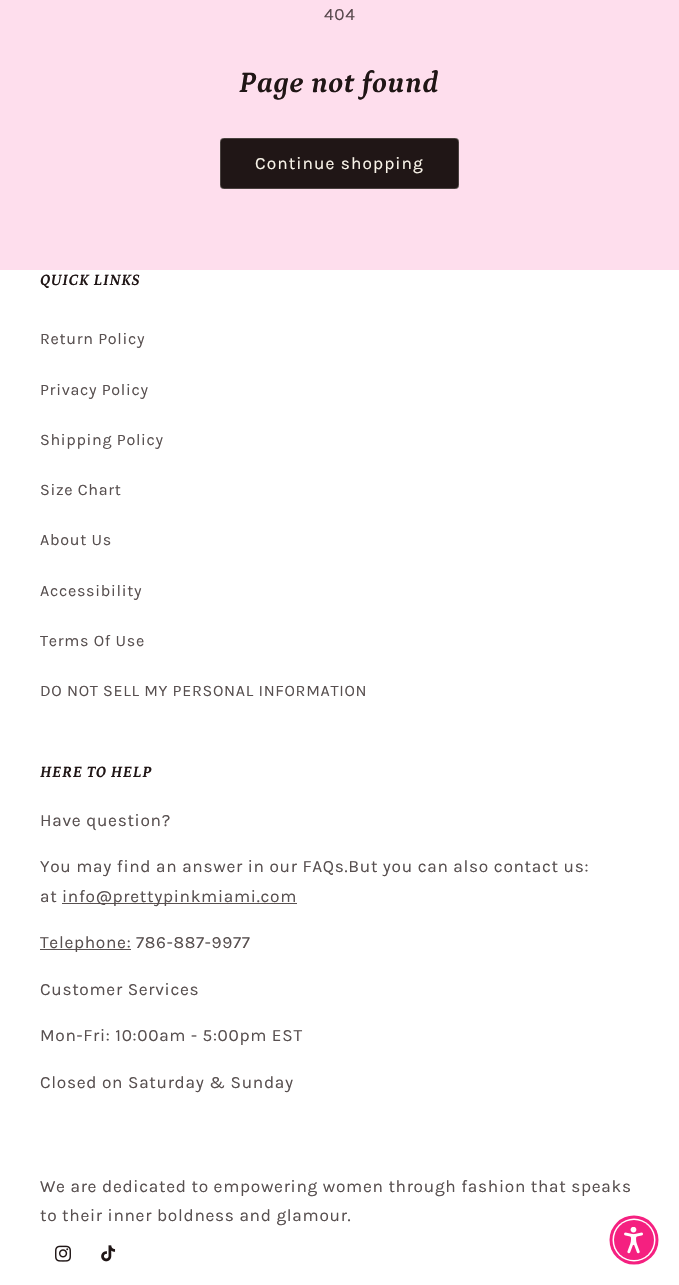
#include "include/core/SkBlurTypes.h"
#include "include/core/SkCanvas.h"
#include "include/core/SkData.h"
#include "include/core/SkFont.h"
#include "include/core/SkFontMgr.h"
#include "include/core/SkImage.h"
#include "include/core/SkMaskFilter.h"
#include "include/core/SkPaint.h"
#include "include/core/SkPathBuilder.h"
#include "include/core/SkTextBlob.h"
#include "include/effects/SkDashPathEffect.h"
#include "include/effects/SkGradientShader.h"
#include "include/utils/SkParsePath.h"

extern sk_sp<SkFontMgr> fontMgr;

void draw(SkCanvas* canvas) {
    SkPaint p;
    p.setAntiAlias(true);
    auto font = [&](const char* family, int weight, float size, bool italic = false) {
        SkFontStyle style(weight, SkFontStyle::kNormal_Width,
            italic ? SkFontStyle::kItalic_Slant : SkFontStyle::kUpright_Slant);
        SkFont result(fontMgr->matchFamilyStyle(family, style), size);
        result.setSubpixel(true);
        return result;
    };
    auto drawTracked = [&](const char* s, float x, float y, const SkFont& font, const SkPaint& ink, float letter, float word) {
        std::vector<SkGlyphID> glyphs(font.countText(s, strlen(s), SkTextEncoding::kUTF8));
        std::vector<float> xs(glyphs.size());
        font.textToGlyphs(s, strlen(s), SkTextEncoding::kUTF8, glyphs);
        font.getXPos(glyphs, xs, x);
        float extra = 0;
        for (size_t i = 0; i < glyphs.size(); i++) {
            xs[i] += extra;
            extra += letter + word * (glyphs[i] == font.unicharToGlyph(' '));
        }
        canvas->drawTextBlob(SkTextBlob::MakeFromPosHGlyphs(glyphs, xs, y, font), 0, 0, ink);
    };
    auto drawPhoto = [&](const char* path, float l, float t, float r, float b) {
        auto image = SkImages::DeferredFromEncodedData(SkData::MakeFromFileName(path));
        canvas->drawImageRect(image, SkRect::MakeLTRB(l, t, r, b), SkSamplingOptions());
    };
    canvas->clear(0xFFFEDEED);
    auto font1 = font("Karla", 400, 17.25f);
    p.setColor(0xFF58484C);
    drawTracked("404", 324, 20, font1, p, 0.7f, 0);
    auto font2 = font("Petrona", 700, 30, true);
    p.setColor(0xFF201616);
    drawTracked("Page not found", 239, 92, font2, p, 0.6f, 0);
    canvas->drawRoundRect(SkRect::MakeLTRB(220, 138, 459, 189), 4, 4, p);
    p.setStyle(SkPaint::kStroke_Style);
    p.setStrokeWidth(0.3f);
    p.setColor(0xFFF9F4E9);
    canvas->drawRoundRect(SkRect::MakeLTRB(220.15f, 138.15f, 458.85f, 188.85f), 3.85f, 3.85f, p);
    p.setStyle(SkPaint::kFill_Style);
    drawTracked("Continue shopping", 255, 169, font1, p, 1.1f, 0);
    p.setColor(0xFFFFFFFF);
    canvas->drawRect(SkRect::MakeLTRB(0, 270, 679, 1285), p);
    auto font3 = font("Petrona", 700, 16, true);
    p.setColor(0xFF201616);
    drawTracked("QUICK LINKS", 40, 285, font3, p, 0.6f, 0);
    auto font4 = font("Karla", 400, 16.1f);
    p.setColor(0xFF585050);
    {
        const struct { const char* s; float x, y; } items[] = {
            {"Return Policy", 40, 344},
            {"Privacy Policy", 40, 395},
            {"Shipping Policy", 40, 445},
            {"Size Chart", 40, 495},
            {"About Us", 40, 545},
            {"Accessibility", 40, 596},
            {"Terms Of Use", 40, 646},
            {"DO NOT SELL MY PERSONAL INFORMATION", 40, 696},
        };
        for (auto [s, x, y] : items) {
            drawTracked(s, x, y, font4, p, 0.7f, 0);
        }
    }
    p.setColor(0xFF201616);
    drawTracked("HERE TO HELP", 40, 777, font3, p, 0.6f, 0);
    p.setColor(0xFF585050);
    {
        const struct { const char* s; float x, y; } items[] = {
            {"Have question?", 40, 826},
            {"You may find an answer in our FAQs.But you can also contact us:", 40, 872},
            {"at", 40, 902},
        };
        for (auto [s, x, y] : items) {
            drawTracked(s, x, y, font1, p, 0.7f, 0);
        }
    }
    canvas->drawRect(SkRect::MakeLTRB(62, 903, 297, 904), p);
    drawTracked("info@prettypinkmiami.com", 62, 902, font1, p, 0.7f, 0);
    canvas->drawRect(SkRect::MakeLTRB(40, 949, 131, 950), p);
    {
        const struct { const char* s; float x, y; } items[] = {
            {"Telephone:", 40, 948},
            {"786-887-9977", 136, 948},
            {"Customer Services", 40, 995},
            {"Mon-Fri: 10:00am - 5:00pm EST", 40, 1041},
            {"Closed on Saturday & Sunday", 40, 1088},
            {"We are dedicated to empowering women through fashion that speaks", 40, 1192},
            {"to their inner boldness and glamour.", 40, 1221},
        };
        for (auto [s, x, y] : items) {
            drawTracked(s, x, y, font1, p, 0.7f, 0);
        }
    }
    drawPhoto("media/1.png", 55, 1245, 71, 1262);
    drawPhoto("media/2.png", 101, 1245, 116, 1262);
    p.setColor(0xFFF52080);
    canvas->drawCircle(634, 1240, 24.5f, p);
    p.setColor(0xFFFFFFFF);
    canvas->drawCircle(634, 1240, 21.5f, p);
    p.setColor(0xFFF52080);
    canvas->drawCircle(634, 1240, 20, p);
    drawPhoto("media/3.png", 624, 1227, 643, 1254);
}
